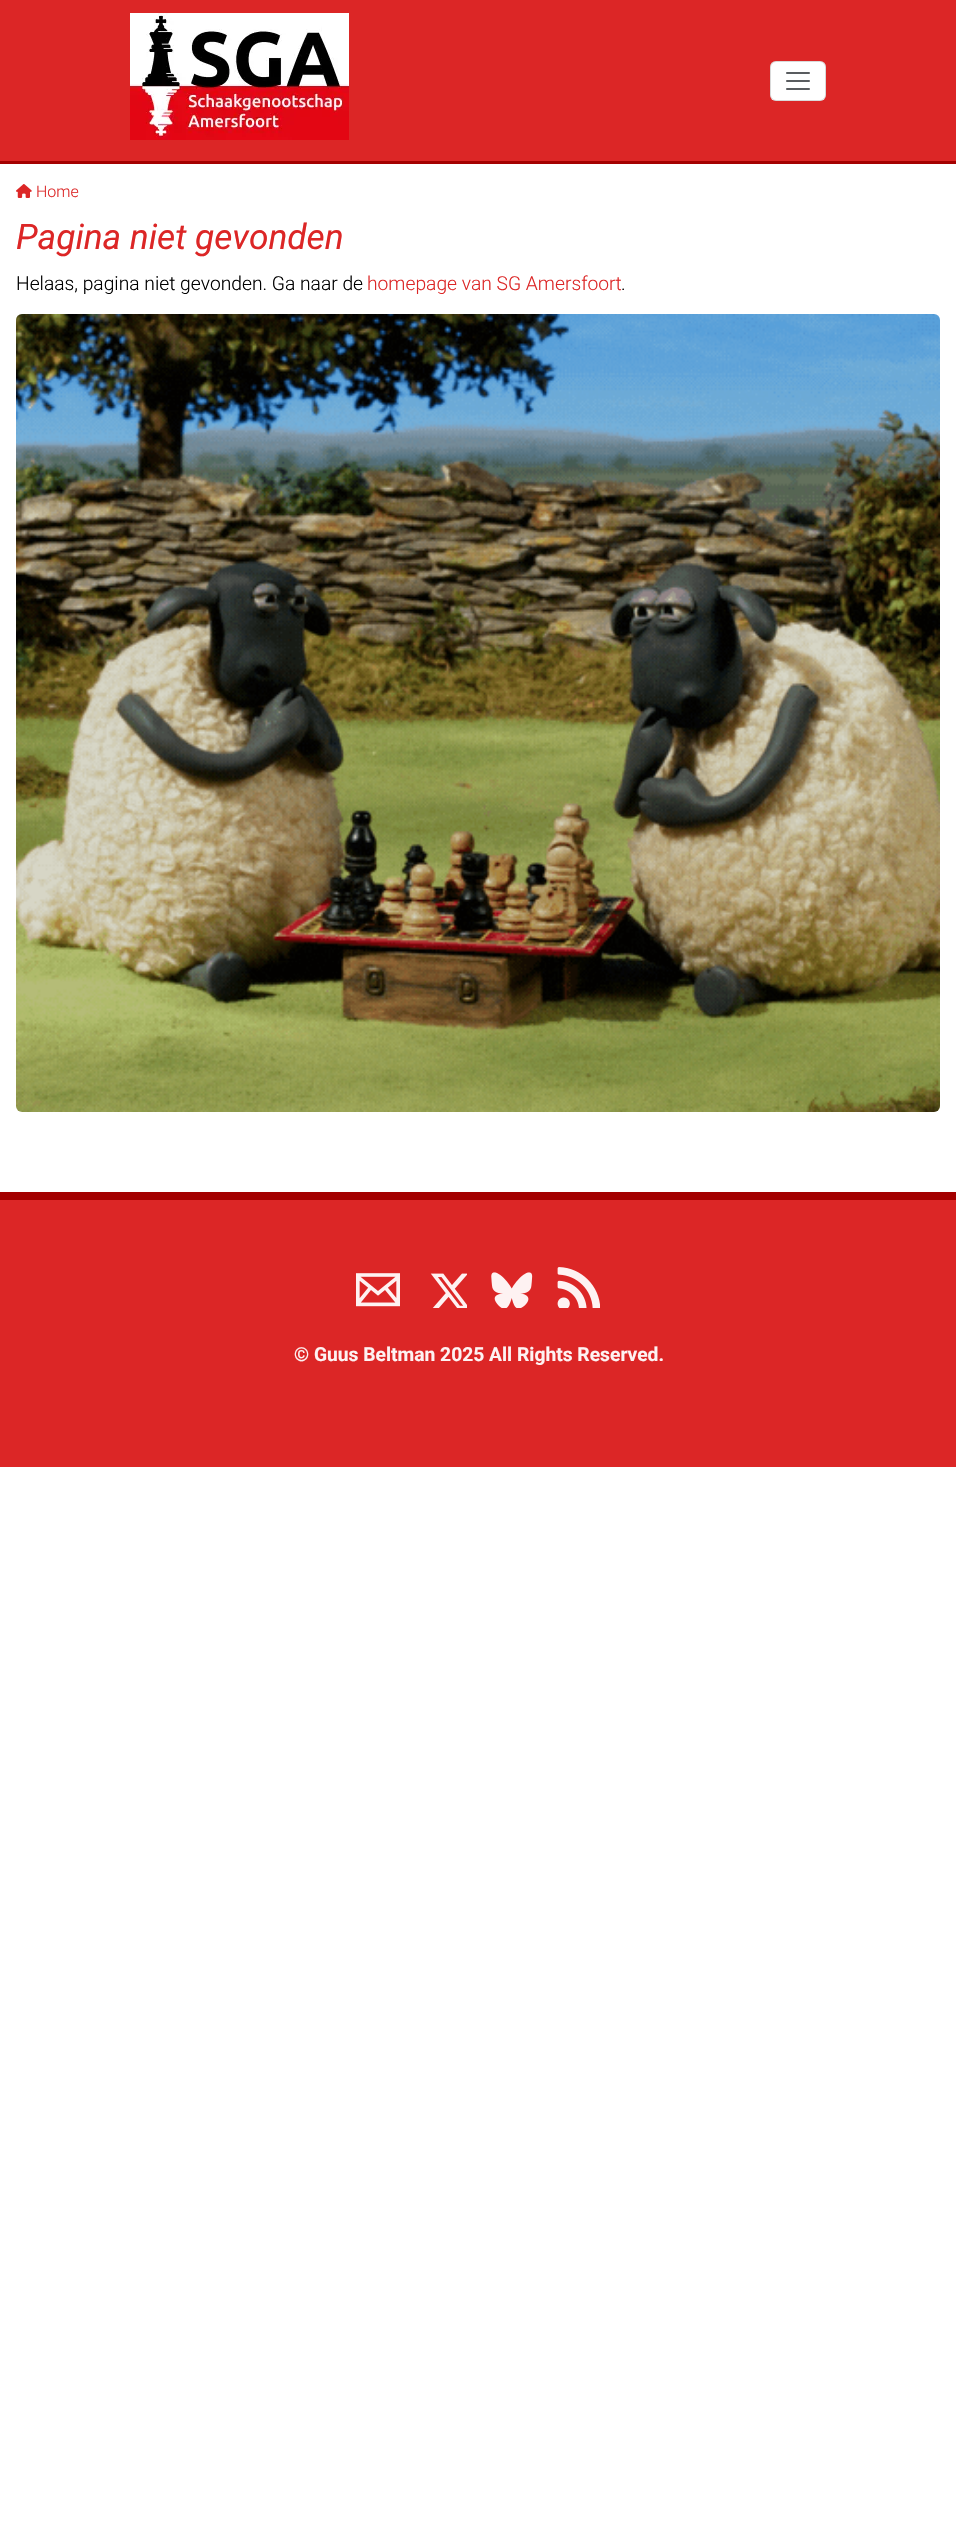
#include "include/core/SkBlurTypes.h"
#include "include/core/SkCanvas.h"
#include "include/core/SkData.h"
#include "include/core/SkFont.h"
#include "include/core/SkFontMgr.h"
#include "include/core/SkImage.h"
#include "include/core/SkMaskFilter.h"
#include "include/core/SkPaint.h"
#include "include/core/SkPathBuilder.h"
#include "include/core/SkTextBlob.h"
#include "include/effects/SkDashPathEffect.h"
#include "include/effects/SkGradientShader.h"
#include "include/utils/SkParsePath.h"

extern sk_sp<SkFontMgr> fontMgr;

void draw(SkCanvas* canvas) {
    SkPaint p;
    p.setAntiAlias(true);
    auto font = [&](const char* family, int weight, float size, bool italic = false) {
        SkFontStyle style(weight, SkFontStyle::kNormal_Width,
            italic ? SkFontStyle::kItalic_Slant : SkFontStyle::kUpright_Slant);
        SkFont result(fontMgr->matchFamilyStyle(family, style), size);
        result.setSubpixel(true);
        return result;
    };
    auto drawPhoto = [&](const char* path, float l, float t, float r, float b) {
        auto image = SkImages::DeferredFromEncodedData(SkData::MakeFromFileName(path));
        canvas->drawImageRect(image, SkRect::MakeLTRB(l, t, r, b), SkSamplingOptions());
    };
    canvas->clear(0xFFFFFFFF);
    p.setColor(0xFFDC2626);
    canvas->drawRect(SkRect::MakeLTRB(0, 0, 956, 161), p);
    p.setColor(0xFFA40000);
    canvas->drawRect(SkRect::MakeLTRB(0, 161, 956, 164), p);
    drawPhoto("media/1.png", 130, 13, 349, 140);
    p.setColor(0xFFFFFFFF);
    canvas->drawRoundRect(SkRect::MakeLTRB(770, 61, 826, 101), 6, 6, p);
    p.setStyle(SkPaint::kStroke_Style);
    p.setStrokeWidth(1);
    p.setColor(0x26000000);
    canvas->drawRoundRect(SkRect::MakeLTRB(770.5f, 61.5f, 825.5f, 100.5f), 5.5f, 5.5f, p);
    drawPhoto("media/2.png", 786, 72, 810, 90);
    drawPhoto("media/3.png", 16, 184, 32, 198);
    auto font1 = font("Roboto", 300, 16);
    p.setStyle(SkPaint::kFill_Style);
    p.setColor(0xFFDC2626);
    canvas->drawString("Home", 36, 197, font1, p);
    auto font2 = font("Roboto", 400, 35.25f, true);
    canvas->drawString("Pagina niet gevonden", 16, 249, font2, p);
    auto font3 = font("Roboto", 300, 19.25f);
    p.setColor(0xFF000000);
    canvas->drawString("Helaas, pagina niet gevonden. Ga naar de", 16, 290, font3, p);
    p.setColor(0xFFDC2626);
    canvas->drawString("homepage van SG Amersfoort", 367, 290, font3, p);
    p.setColor(0xFF000000);
    canvas->drawString(".", 621, 290, font3, p);
    drawPhoto("media/4.png", 16, 314, 940, 1112);
    p.setColor(0xFFDC2626);
    canvas->drawRect(SkRect::MakeLTRB(0, 1200, 956, 1467), p);
    p.setColor(0xFFA40000);
    canvas->drawRect(SkRect::MakeLTRB(0, 1192, 956, 1200), p);
    drawPhoto("media/5.png", 356, 1273, 400, 1307);
    drawPhoto("media/6.png", 430, 1273, 467, 1308);
    drawPhoto("media/7.png", 491, 1272, 533, 1308);
    drawPhoto("media/8.png", 557, 1267, 600, 1308);
    auto font4 = font("Roboto", 700, 19.25f);
    p.setColor(0xFFFEF2F2);
    canvas->drawString("© Guus Beltman 2025 All Rights Reserved.", 294, 1361, font4, p);
}
